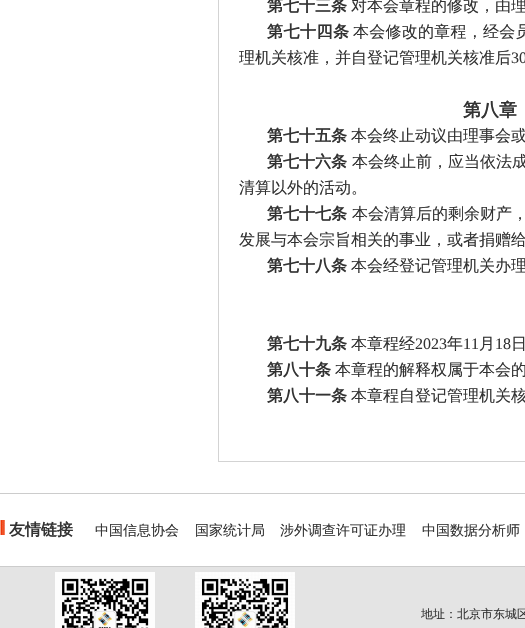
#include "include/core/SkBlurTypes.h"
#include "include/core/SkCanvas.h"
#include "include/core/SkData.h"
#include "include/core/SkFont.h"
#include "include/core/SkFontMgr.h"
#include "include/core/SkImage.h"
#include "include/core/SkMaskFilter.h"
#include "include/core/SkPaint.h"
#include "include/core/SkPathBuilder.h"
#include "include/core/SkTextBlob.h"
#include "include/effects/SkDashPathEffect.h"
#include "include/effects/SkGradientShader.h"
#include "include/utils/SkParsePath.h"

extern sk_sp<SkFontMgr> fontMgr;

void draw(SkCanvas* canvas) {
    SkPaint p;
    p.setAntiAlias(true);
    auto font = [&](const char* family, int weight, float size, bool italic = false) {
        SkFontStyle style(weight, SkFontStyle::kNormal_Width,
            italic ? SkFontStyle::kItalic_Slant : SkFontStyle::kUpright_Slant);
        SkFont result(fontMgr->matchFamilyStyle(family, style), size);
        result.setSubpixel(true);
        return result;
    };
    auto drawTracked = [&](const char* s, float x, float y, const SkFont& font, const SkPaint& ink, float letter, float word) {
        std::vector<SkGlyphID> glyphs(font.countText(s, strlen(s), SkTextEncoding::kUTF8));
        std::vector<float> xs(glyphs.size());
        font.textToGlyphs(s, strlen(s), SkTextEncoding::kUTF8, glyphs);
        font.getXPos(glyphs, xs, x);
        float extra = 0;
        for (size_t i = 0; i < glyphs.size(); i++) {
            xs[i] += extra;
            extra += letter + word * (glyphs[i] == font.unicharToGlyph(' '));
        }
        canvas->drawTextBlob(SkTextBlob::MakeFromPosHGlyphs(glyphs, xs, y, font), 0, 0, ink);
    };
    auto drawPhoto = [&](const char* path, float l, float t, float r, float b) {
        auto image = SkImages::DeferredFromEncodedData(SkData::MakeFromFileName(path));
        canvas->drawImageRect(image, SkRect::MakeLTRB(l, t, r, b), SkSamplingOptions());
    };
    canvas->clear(0xFFFFFFFF);
    p.setStyle(SkPaint::kStroke_Style);
    p.setStrokeWidth(1);
    p.setColor(0xFFD3D3D3);
    canvas->drawRect(SkRect::MakeLTRB(218.5f, -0.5f, 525.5f, 461.5f), p);
    auto font1 = font("WenQuanYi Zen Hei", 700, 16);
    p.setStyle(SkPaint::kFill_Style);
    p.setColor(0xFF333333);
    canvas->drawString("第七十三条", 267, 11, font1, p);
    auto font2 = font("WenQuanYi Zen Hei", 500, 16);
    canvas->drawString("对本会章程的修改，由理", 351, 11, font2, p);
    drawTracked("第七十四条", 267, 37, font1, p, 0.5f, 0);
    drawTracked("本会修改的章程，经会员", 353, 37, font2, p, 0.25f, 0);
    canvas->drawString("理机关核准，并自登记管理机关核准后", 239, 63, font2, p);
    auto font3 = font("Liberation Serif", 400, 16);
    canvas->drawString("30", 511, 63, font3, p);
    auto font4 = font("WenQuanYi Zen Hei", 700, 18);
    drawTracked("第八章", 463, 116, font4, p, 0, -1);
    canvas->drawString("第七十五条", 267, 141, font1, p);
    canvas->drawString("本会终止动议由理事会或", 351, 141, font2, p);
    canvas->drawString("第七十六条", 267, 167, font1, p);
    canvas->drawString("本会终止前，应当依法成", 352, 167, font2, p);
    canvas->drawString("清算以外的活动。", 239, 193, font2, p);
    canvas->drawString("第七十七条", 267, 219, font1, p);
    canvas->drawString("本会清算后的剩余财产，", 352, 219, font2, p);
    canvas->drawString("发展与本会宗旨相关的事业，或者捐赠给", 239, 245, font2, p);
    canvas->drawString("第七十八条", 267, 271, font1, p);
    canvas->drawString("本会经登记管理机关办理", 351, 271, font2, p);
    canvas->drawString("第七十九条", 267, 349, font1, p);
    canvas->drawString("本章程经", 351, 349, font2, p);
    canvas->drawString("2023", 415, 349, font3, p);
    canvas->drawString("年", 447, 349, font2, p);
    canvas->drawString("11", 463, 349, font3, p);
    canvas->drawString("月", 479, 349, font2, p);
    canvas->drawString("18", 495, 349, font3, p);
    canvas->drawString("日", 511, 349, font2, p);
    canvas->drawString("第八十条", 267, 375, font1, p);
    canvas->drawString("本章程的解释权属于本会的", 335, 375, font2, p);
    canvas->drawString("第八十一条", 267, 401, font1, p);
    canvas->drawString("本章程自登记管理机关核", 351, 401, font2, p);
    p.setColor(0xFFCCCCCC);
    canvas->drawRect(SkRect::MakeLTRB(0, 493, 525, 494), p);
    canvas->drawRect(SkRect::MakeLTRB(0, 566, 525, 567), p);
    drawPhoto("media/1.png", 0, 520, 5, 535);
    p.setColor(0xFF333333);
    canvas->drawString("友情链接", 9, 535, font1, p);
    auto font5 = font("WenQuanYi Zen Hei", 500, 14);
    {
        const struct { const char* s; float x, y; } items[] = {
            {"中国信息协会", 95, 535},
            {"国家统计局", 195, 535},
            {"涉外调查许可证办理", 280, 535},
            {"中国数据分析师", 422, 535},
        };
        for (auto [s, x, y] : items) {
            canvas->drawString(s, x, y, font5, p);
        }
    }
    p.setColor(0xFFE4E4E4);
    canvas->drawRect(SkRect::MakeLTRB(0, 567, 525, 628), p);
    drawPhoto("media/2.png", 55, 572, 155, 628);
    drawPhoto("media/3.png", 195, 572, 295, 628);
    auto font6 = font("WenQuanYi Zen Hei", 500, 12);
    p.setColor(0xFF333333);
    canvas->drawString("地址：北京市东城区", 421, 618, font6, p);
}
